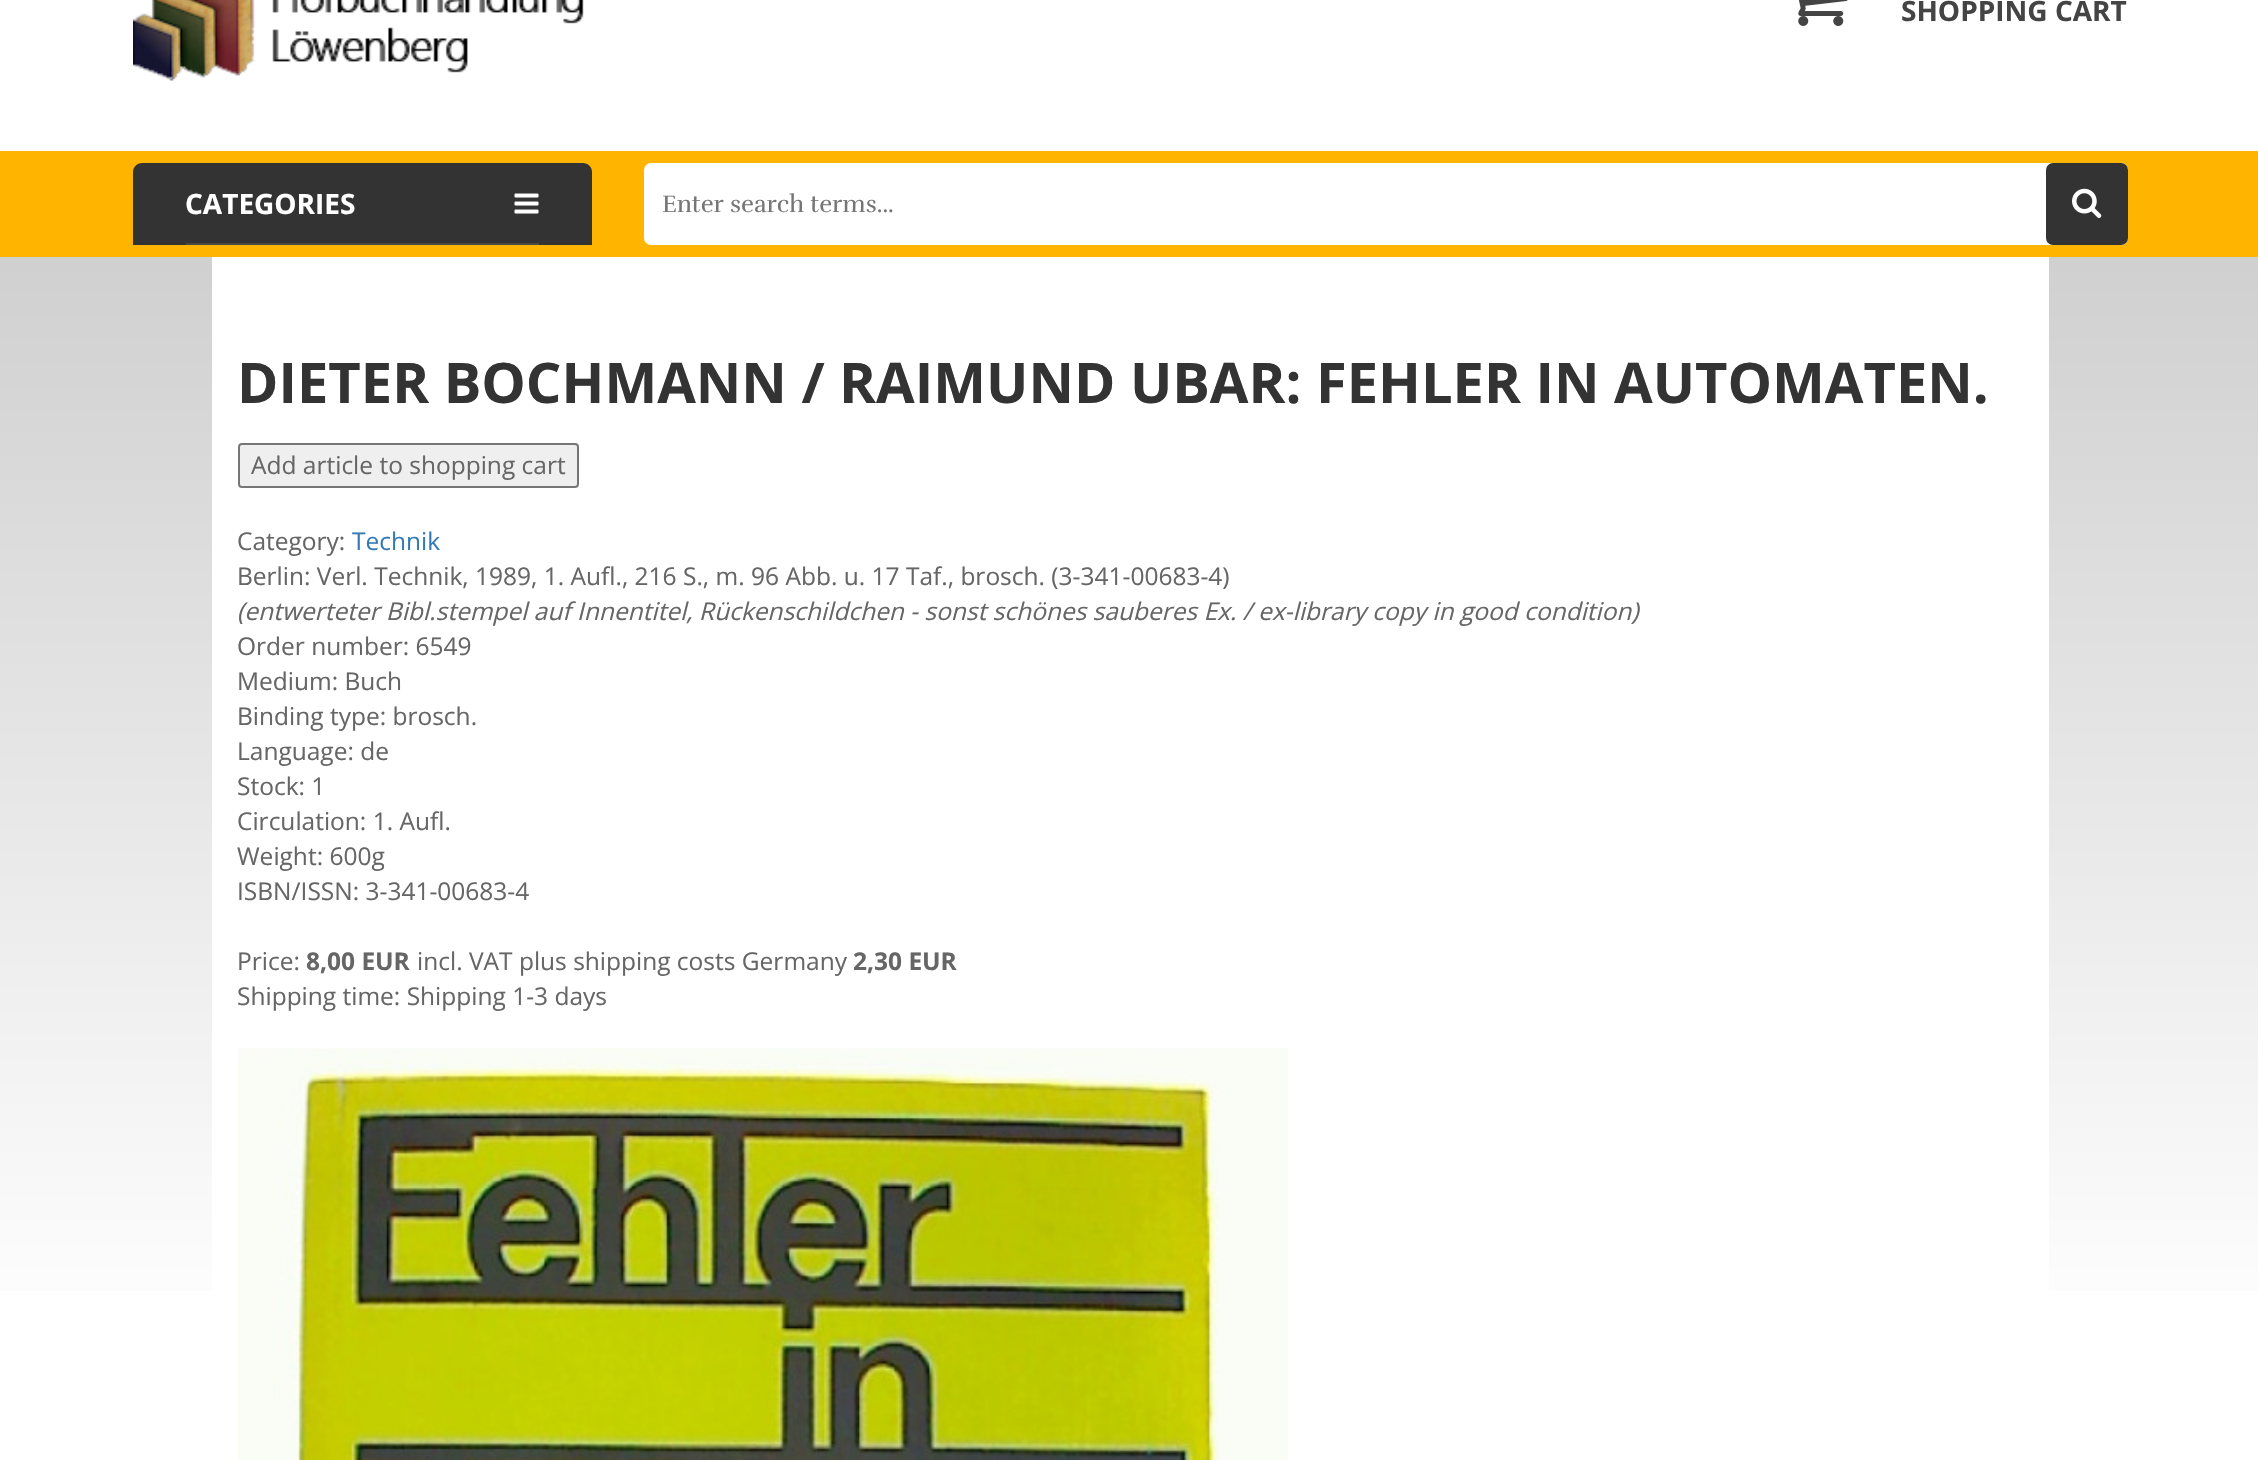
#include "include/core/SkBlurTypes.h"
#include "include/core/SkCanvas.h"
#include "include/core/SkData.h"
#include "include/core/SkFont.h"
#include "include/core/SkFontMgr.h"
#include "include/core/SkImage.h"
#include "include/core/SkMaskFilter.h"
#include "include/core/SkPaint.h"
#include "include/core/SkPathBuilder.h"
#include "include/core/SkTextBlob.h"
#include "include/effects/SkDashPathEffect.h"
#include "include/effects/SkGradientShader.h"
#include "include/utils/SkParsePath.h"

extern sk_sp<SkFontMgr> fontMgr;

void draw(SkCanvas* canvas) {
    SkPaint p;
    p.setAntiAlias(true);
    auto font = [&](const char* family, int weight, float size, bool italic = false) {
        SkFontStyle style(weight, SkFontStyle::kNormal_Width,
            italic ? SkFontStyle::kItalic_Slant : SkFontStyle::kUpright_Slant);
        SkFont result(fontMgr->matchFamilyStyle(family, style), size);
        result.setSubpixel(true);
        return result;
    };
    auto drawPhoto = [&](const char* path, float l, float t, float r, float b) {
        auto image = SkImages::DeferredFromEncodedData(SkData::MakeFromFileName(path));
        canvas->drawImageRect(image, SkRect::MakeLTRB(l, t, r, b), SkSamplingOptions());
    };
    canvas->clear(0xFFFFFFFF);
    {
        const SkColor colors[] = {0xFFC0C0C0, 0xFFFFFFFF};
        const float stops[] = {0, 1};
        const SkPoint ends[] = {{1130, -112}, {1130, 1349}};
        p.setShader(SkGradientShader::MakeLinear(ends, colors, stops, 2, SkTileMode::kClamp));
        p.setAlpha(255);
    }
    canvas->drawRect(SkRect::MakeLTRB(0, 257, 2258, 1291), p);
    drawPhoto("media/1.png", 133, 0, 584, 81);
    drawPhoto("media/2.png", 1798, 0, 1848, 26);
    auto font1 = font("Open Sans", 700, 28);
    p.setShader(nullptr);
    p.setColor(0xFF444444);
    canvas->drawString("SHOPPING CART", 1901, 21, font1, p);
    p.setColor(0xFFFFB400);
    canvas->drawRect(SkRect::MakeLTRB(0, 151, 2258, 257), p);
    p.setColor(0xFF333333);
    canvas->drawPath(SkPathBuilder().moveTo(142, 163).lineTo(583, 163).cubicTo(588, 163, 592, 167, 592, 172).lineTo(592, 245).lineTo(133, 245).lineTo(133, 172).cubicTo(133, 167, 137, 163, 142, 163).close().detach(), p);
    p.setColor(0xFF484848);
    canvas->drawRect(SkRect::MakeLTRB(186, 243, 539, 245), p);
    p.setColor(0xFFFFFFFF);
    canvas->drawString("CATEGORIES", 185, 214, font1, p);
    drawPhoto("media/3.png", 514, 193, 539, 214);
    canvas->drawRoundRect(SkRect::MakeLTRB(644, 163, 2128, 245), 7, 7, p);
    auto font2 = font("Rufina", 400, 24.5f);
    p.setColor(0xFF757575);
    canvas->drawString("Enter search terms...", 662, 212, font2, p);
    p.setColor(0xFF333333);
    canvas->drawRoundRect(SkRect::MakeLTRB(2046, 163, 2128, 245), 7, 7, p);
    drawPhoto("media/4.png", 2072, 188, 2102, 218);
    p.setColor(0xFFFFFFFF);
    canvas->drawRect(SkRect::MakeLTRB(212, 257, 2049, 1291), p);
    auto font3 = font("Open Sans", 700, 56);
    p.setColor(0xFF333333);
    canvas->drawString("DIETER BOCHMANN / RAIMUND UBAR: FEHLER IN AUTOMATEN.", 237, 403, font3, p);
    p.setColor(0xFFEFEFEF);
    canvas->drawRoundRect(SkRect::MakeLTRB(239, 444, 578, 487), 3, 3, p);
    p.setStyle(SkPaint::kStroke_Style);
    p.setStrokeWidth(2);
    p.setColor(0xFF767676);
    canvas->drawRoundRect(SkRect::MakeLTRB(239, 444, 578, 487), 3, 3, p);
    auto font4 = font("Open Sans", 400, 24.5f);
    p.setStyle(SkPaint::kFill_Style);
    p.setColor(0xFF666666);
    canvas->drawString("Add article to shopping cart", 251, 474, font4, p);
    canvas->drawString("Category:", 237, 550, font4, p);
    p.setColor(0xFF337AB7);
    canvas->drawString("Technik", 352, 550, font4, p);
    p.setColor(0xFF666666);
    canvas->drawString("Berlin: Verl. Technik, 1989, 1. Aufl., 216 S., m. 96 Abb. u. 17 Taf., brosch. (3-341-00683-4)", 237, 585, font4, p);
    auto font5 = font("Open Sans", 400, 24.5f, true);
    canvas->drawString("(entwerteter Bibl.stempel auf Innentitel, Rückenschildchen - sonst schönes sauberes Ex. / ex-library copy in good condition)", 237, 620, font5, p);
    {
        const struct { const char* s; float x, y; } items[] = {
            {"Order number: 6549", 237, 655},
            {"Medium: Buch", 237, 690},
            {"Binding type: brosch.", 237, 725},
            {"Language: de", 237, 760},
            {"Stock: 1", 237, 795},
            {"Circulation: 1. Aufl.", 237, 830},
            {"Weight: 600g", 237, 865},
            {"ISBN/ISSN: 3-341-00683-4", 237, 900},
            {"Price:", 237, 970},
        };
        for (auto [s, x, y] : items) {
            canvas->drawString(s, x, y, font4, p);
        }
    }
    auto font6 = font("Open Sans", 700, 24.5f);
    canvas->drawString("8,00 EUR", 306, 970, font6, p);
    canvas->drawString("incl. VAT plus shipping costs Germany", 417, 970, font4, p);
    canvas->drawString("2,30 EUR", 853, 970, font6, p);
    canvas->drawString("Shipping time: Shipping 1-3 days", 237, 1005, font4, p);
    drawPhoto("media/5.png", 238, 1048, 1288, 1460);
}
